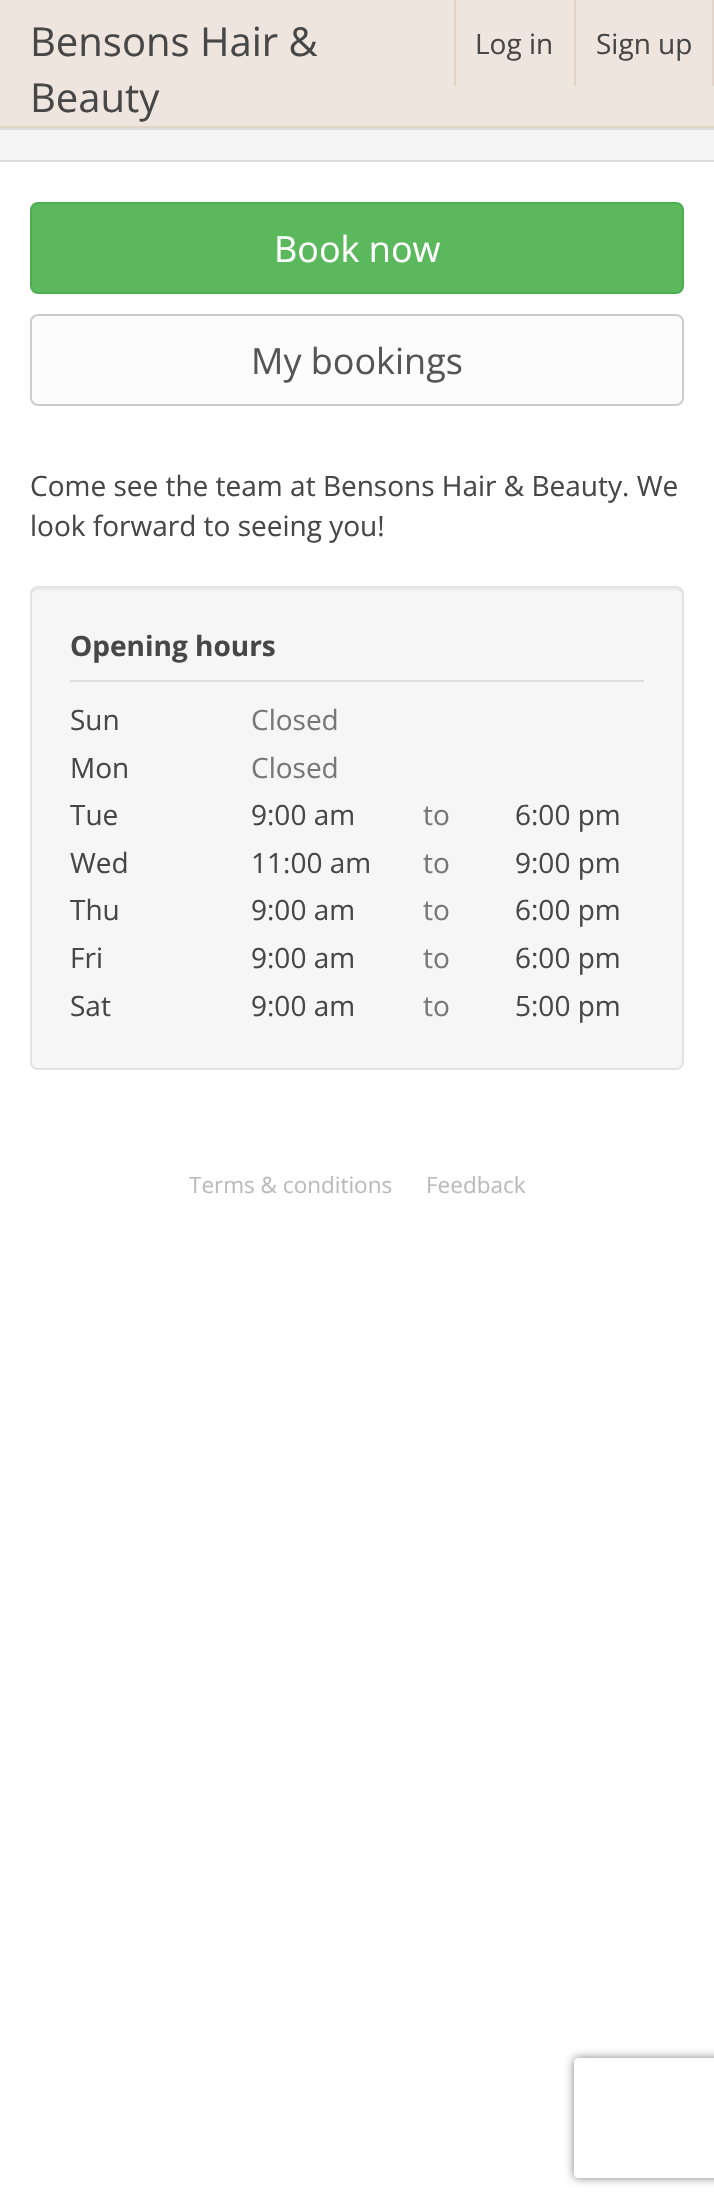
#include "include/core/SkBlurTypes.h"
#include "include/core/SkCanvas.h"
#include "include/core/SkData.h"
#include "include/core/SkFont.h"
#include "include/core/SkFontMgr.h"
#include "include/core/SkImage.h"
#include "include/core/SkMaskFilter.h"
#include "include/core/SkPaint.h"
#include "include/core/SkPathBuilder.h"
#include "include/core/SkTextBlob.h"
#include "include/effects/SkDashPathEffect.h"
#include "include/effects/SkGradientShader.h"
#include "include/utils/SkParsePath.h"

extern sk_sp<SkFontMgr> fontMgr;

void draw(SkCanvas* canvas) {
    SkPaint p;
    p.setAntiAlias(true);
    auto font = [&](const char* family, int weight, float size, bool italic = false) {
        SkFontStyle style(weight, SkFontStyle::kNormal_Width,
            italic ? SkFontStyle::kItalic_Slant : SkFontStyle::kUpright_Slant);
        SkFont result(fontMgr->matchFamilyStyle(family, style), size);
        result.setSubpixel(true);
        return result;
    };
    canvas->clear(0xFFFFFFFF);
    p.setColor(0xFFEEE6DE);
    canvas->drawRect(SkRect::MakeLTRB(0, 0, 714, 126), p);
    p.setColor(0xFFE2D4C6);
    canvas->drawRect(SkRect::MakeLTRB(0, 126, 714, 128), p);
    auto font1 = font("Open Sans", 400, 40);
    p.setColor(0xFF474747);
    canvas->drawString("Bensons Hair &", 30, 56, font1, p);
    canvas->drawString("Beauty", 30, 112, font1, p);
    p.setColor(0xFFE2D4C6);
    canvas->drawRect(SkRect::MakeLTRB(574, 0, 576, 86), p);
    canvas->drawRect(SkRect::MakeLTRB(454, 0, 456, 86), p);
    auto font2 = font("Open Sans", 400, 28);
    p.setColor(0xFF474747);
    canvas->drawString("Log in", 475, 54, font2, p);
    p.setColor(0xFFE2D4C6);
    canvas->drawRect(SkRect::MakeLTRB(712, 0, 714, 86), p);
    p.setColor(0xFF474747);
    canvas->drawString("Sign up", 596, 54, font2, p);
    {
        const struct { float l, t, r, b; SkColor color; } items[] = {
            {0, 130, 714, 160, 0xFFF5F5F5},
            {0, 128, 714, 130, 0xFFDDDDDD},
            {0, 160, 714, 162, 0xFFDDDDDD},
        };
        for (auto [l, t, r, b, color] : items) {
            p.setColor(color);
            canvas->drawRect(SkRect::MakeLTRB(l, t, r, b), p);
        }
    }
    p.setColor(0xFF5CB85C);
    canvas->drawRoundRect(SkRect::MakeLTRB(31, 203, 683, 293), 7, 7, p);
    p.setStyle(SkPaint::kStroke_Style);
    p.setStrokeWidth(2);
    p.setColor(0xFF4CAE4C);
    canvas->drawRoundRect(SkRect::MakeLTRB(31, 203, 683, 293), 7, 7, p);
    auto font3 = font("Open Sans", 400, 36);
    p.setStyle(SkPaint::kFill_Style);
    p.setColor(0xFFFFFFFF);
    canvas->drawString("Book now", 274, 262, font3, p);
    p.setColor(0xFFFCFCFC);
    canvas->drawRoundRect(SkRect::MakeLTRB(31, 315, 683, 405), 7, 7, p);
    p.setStyle(SkPaint::kStroke_Style);
    p.setColor(0xFFCCCCCC);
    canvas->drawRoundRect(SkRect::MakeLTRB(31, 315, 683, 405), 7, 7, p);
    p.setStyle(SkPaint::kFill_Style);
    p.setColor(0xFF555555);
    canvas->drawString("My bookings", 251, 374, font3, p);
    p.setColor(0xFF474747);
    canvas->drawString("Come see the team at Bensons Hair & Beauty. We", 30, 496, font2, p);
    canvas->drawString("look forward to seeing you!", 30, 536, font2, p);
    p.setColor(0xFFF6F6F6);
    canvas->drawRoundRect(SkRect::MakeLTRB(30, 586, 684, 1070), 8, 8, p);
    p.setColor(0xFFEAEAEA);
    canvas->drawPath(SkPathBuilder().moveTo(38, 590).lineTo(676, 590).cubicTo(679, 590, 682, 593, 682, 596).cubicTo(682, 592, 681, 588, 676, 588).lineTo(38, 588).cubicTo(33, 588, 32, 592, 32, 596).cubicTo(32, 593, 35, 590, 38, 590).close().detach(), p);
    p.setStyle(SkPaint::kStroke_Style);
    p.setColor(0xFFE3E3E3);
    canvas->drawRoundRect(SkRect::MakeLTRB(31, 587, 683, 1069), 7, 7, p);
    auto font4 = font("Open Sans", 700, 28);
    p.setStyle(SkPaint::kFill_Style);
    p.setColor(0xFF474747);
    canvas->drawString("Opening hours", 70, 656, font4, p);
    p.setColor(0xFFDDDDDD);
    canvas->drawRect(SkRect::MakeLTRB(70, 680, 644, 682), p);
    p.setColor(0xFF474747);
    canvas->drawString("Sun", 70, 730, font2, p);
    p.setColor(0xFF777777);
    canvas->drawString("Closed", 251, 730, font2, p);
    p.setColor(0xFF474747);
    canvas->drawString("Mon", 70, 778, font2, p);
    p.setColor(0xFF777777);
    canvas->drawString("Closed", 251, 778, font2, p);
    p.setColor(0xFF474747);
    canvas->drawString("Tue", 70, 825, font2, p);
    canvas->drawString("9:00 am", 251, 825, font2, p);
    p.setColor(0xFF777777);
    canvas->drawString("to", 423, 825, font2, p);
    p.setColor(0xFF474747);
    {
        const struct { const char* s; float x, y; } items[] = {
            {"6:00 pm", 515, 825},
            {"Wed", 70, 873},
            {"11:00 am", 251, 873},
        };
        for (auto [s, x, y] : items) {
            canvas->drawString(s, x, y, font2, p);
        }
    }
    p.setColor(0xFF777777);
    canvas->drawString("to", 423, 873, font2, p);
    p.setColor(0xFF474747);
    {
        const struct { const char* s; float x, y; } items[] = {
            {"9:00 pm", 515, 873},
            {"Thu", 70, 920},
            {"9:00 am", 251, 920},
        };
        for (auto [s, x, y] : items) {
            canvas->drawString(s, x, y, font2, p);
        }
    }
    p.setColor(0xFF777777);
    canvas->drawString("to", 423, 920, font2, p);
    p.setColor(0xFF474747);
    {
        const struct { const char* s; float x, y; } items[] = {
            {"6:00 pm", 515, 920},
            {"Fri", 70, 968},
            {"9:00 am", 251, 968},
        };
        for (auto [s, x, y] : items) {
            canvas->drawString(s, x, y, font2, p);
        }
    }
    p.setColor(0xFF777777);
    canvas->drawString("to", 423, 968, font2, p);
    p.setColor(0xFF474747);
    {
        const struct { const char* s; float x, y; } items[] = {
            {"6:00 pm", 515, 968},
            {"Sat", 70, 1016},
            {"9:00 am", 251, 1016},
        };
        for (auto [s, x, y] : items) {
            canvas->drawString(s, x, y, font2, p);
        }
    }
    p.setColor(0xFF777777);
    canvas->drawString("to", 423, 1016, font2, p);
    p.setColor(0xFF474747);
    canvas->drawString("5:00 pm", 515, 1016, font2, p);
    auto font5 = font("Open Sans", 400, 22.5f);
    p.setColor(0xFFBBBBBB);
    canvas->drawString("Terms & conditions", 189, 1193, font5, p);
    canvas->drawString("Feedback", 426, 1193, font5, p);
    canvas->save();
    canvas->clipPath(SkPathBuilder(SkPathFillType::kEvenOdd).moveTo(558, 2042).lineTo(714, 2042).lineTo(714, 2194).lineTo(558, 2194).close().moveTo(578, 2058).lineTo(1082, 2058).cubicTo(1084, 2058, 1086, 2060, 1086, 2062).lineTo(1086, 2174).cubicTo(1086, 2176, 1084, 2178, 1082, 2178).lineTo(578, 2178).cubicTo(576, 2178, 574, 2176, 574, 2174).lineTo(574, 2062).cubicTo(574, 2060, 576, 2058, 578, 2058).close().detach(), true);
    p.setColor(0xFF808080);
    p.setMaskFilter(SkMaskFilter::MakeBlur(kNormal_SkBlurStyle, 5));
    canvas->drawRoundRect(SkRect::MakeLTRB(574, 2058, 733, 2178), 4, 4, p);
    p.setMaskFilter(nullptr);
    canvas->restore();
}
